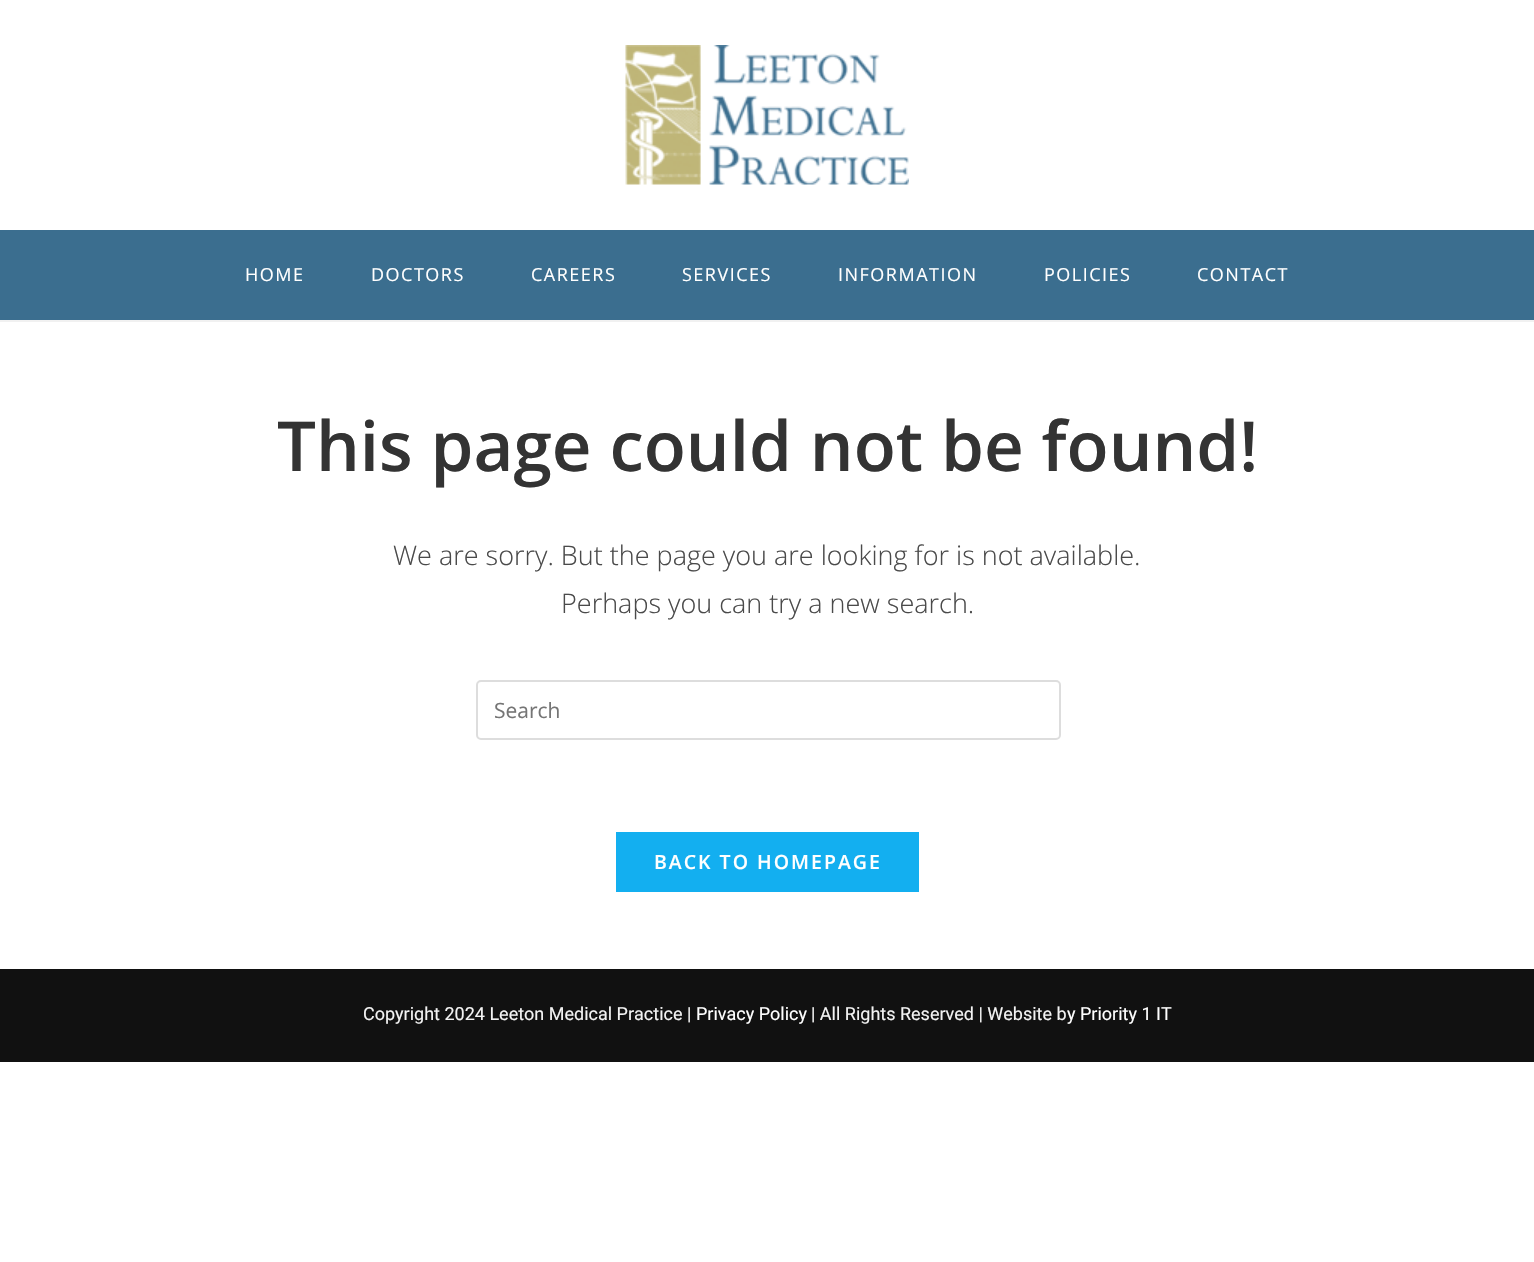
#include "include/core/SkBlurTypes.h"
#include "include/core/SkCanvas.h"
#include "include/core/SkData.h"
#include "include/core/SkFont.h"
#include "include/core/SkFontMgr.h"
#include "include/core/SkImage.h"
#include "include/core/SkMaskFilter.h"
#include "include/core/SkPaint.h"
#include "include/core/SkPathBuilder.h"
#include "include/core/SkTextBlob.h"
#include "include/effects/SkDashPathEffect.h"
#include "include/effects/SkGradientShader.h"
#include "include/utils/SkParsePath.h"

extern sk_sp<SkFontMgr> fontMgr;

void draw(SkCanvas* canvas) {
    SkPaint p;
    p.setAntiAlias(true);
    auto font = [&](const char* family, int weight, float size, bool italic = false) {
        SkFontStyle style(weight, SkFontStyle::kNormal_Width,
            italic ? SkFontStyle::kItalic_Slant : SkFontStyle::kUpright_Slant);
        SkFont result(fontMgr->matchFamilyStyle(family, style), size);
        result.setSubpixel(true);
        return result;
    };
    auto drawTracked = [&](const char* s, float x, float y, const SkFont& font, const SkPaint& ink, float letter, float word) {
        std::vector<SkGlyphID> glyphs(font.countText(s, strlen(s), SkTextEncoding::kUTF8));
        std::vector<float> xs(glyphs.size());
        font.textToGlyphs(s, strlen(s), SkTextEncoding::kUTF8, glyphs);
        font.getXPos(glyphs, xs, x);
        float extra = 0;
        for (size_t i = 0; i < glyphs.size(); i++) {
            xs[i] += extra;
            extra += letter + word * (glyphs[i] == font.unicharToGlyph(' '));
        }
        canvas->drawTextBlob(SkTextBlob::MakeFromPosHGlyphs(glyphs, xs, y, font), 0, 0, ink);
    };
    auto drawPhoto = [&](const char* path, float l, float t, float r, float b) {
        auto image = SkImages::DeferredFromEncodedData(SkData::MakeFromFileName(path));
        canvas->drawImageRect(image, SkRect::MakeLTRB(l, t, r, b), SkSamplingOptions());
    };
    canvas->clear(0xFFFFFFFF);
    p.setColor(0xFFF1F1F1);
    canvas->drawRect(SkRect::MakeLTRB(0, 320, 1534, 322), p);
    drawPhoto("media/1.png", 625, 45, 909, 185);
    p.setColor(0xFF3B6E8F);
    canvas->drawRect(SkRect::MakeLTRB(0, 230, 1534, 320), p);
    auto font1 = font("Open Sans", 400, 18);
    p.setColor(0xFFFFFFFF);
    {
        const struct { const char* s; float x, y; } items[] = {
            {"HOME", 245, 281},
            {"DOCTORS", 371, 281},
            {"CAREERS", 531, 281},
            {"SERVICES", 682, 281},
            {"INFORMATION", 838, 281},
            {"POLICIES", 1044, 281},
            {"CONTACT", 1197, 281},
        };
        for (auto [s, x, y] : items) {
            drawTracked(s, x, y, font1, p, 1.5f, 0);
        }
    }
    auto font2 = font("Open Sans", 600, 69);
    p.setColor(0xFF333333);
    canvas->drawString("This page could not be found!", 277, 471, font2, p);
    auto font3 = font("Open Sans", 300, 27);
    p.setColor(0xFF4A4A4A);
    canvas->drawString("We are sorry. But the page you are looking for is not available.", 393, 565, font3, p);
    canvas->drawString("Perhaps you can try a new search.", 561, 613, font3, p);
    p.setStyle(SkPaint::kStroke_Style);
    p.setStrokeWidth(2);
    p.setColor(0xFFDDDDDD);
    canvas->drawRoundRect(SkRect::MakeLTRB(477, 681, 1060, 739), 4, 4, p);
    auto font4 = font("Open Sans", 400, 21);
    p.setStyle(SkPaint::kFill_Style);
    p.setColor(0xFF757575);
    canvas->drawString("Search", 494, 718, font4, p);
    p.setColor(0xFF13AFF0);
    canvas->drawRect(SkRect::MakeLTRB(616, 832, 919, 892), p);
    auto font5 = font("Open Sans", 600, 19.5f);
    p.setColor(0xFFFFFFFF);
    drawTracked("BACK TO HOMEPAGE", 654, 869, font5, p, 2, 0);
    p.setColor(0xFF111111);
    canvas->drawRect(SkRect::MakeLTRB(0, 969, 1534, 1062), p);
    auto font6 = font("Roboto", 400, 18);
    p.setColor(0xFFF3F3F3);
    canvas->drawString("Copyright 2024 Leeton Medical Practice |", 363, 1020, font6, p);
    p.setColor(0xFFFFFFFF);
    canvas->drawString("Privacy Policy", 696, 1020, font6, p);
    p.setColor(0xFFF3F3F3);
    canvas->drawString("| All Rights Reserved | Website b", 811, 1020, font6, p);
    p.setColor(0xFFFFFFFF);
    canvas->drawString("y Priority 1 IT", 1067, 1020, font6, p);
}
